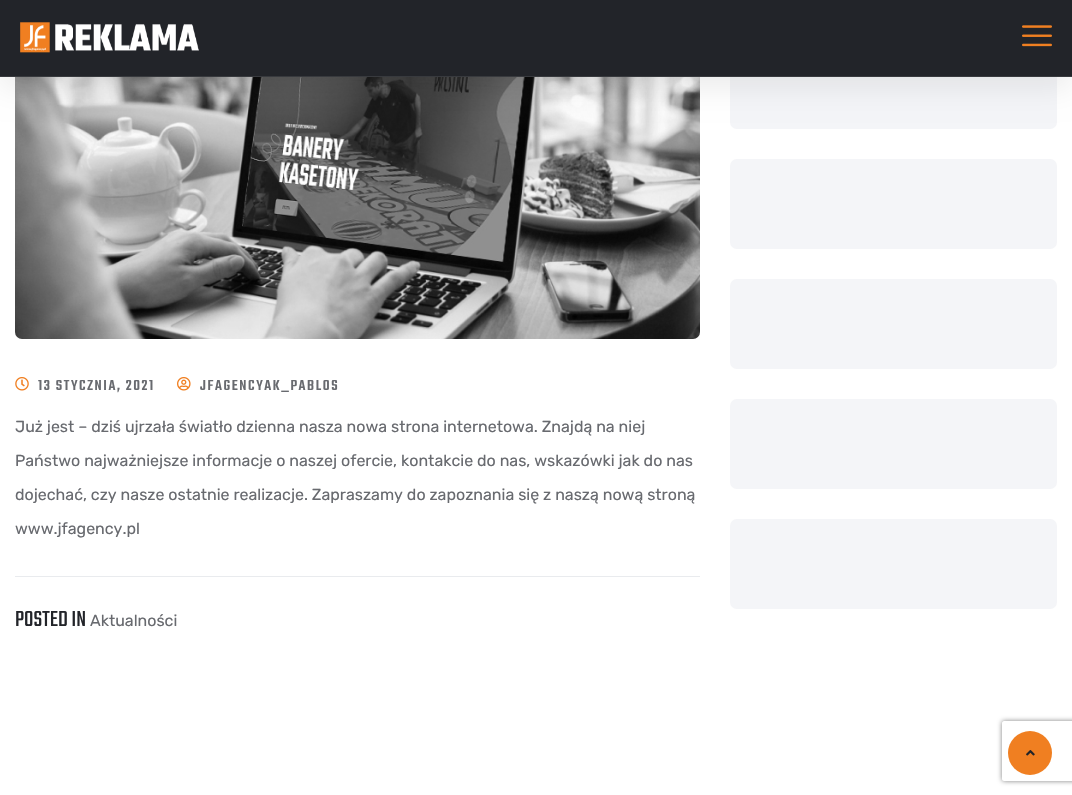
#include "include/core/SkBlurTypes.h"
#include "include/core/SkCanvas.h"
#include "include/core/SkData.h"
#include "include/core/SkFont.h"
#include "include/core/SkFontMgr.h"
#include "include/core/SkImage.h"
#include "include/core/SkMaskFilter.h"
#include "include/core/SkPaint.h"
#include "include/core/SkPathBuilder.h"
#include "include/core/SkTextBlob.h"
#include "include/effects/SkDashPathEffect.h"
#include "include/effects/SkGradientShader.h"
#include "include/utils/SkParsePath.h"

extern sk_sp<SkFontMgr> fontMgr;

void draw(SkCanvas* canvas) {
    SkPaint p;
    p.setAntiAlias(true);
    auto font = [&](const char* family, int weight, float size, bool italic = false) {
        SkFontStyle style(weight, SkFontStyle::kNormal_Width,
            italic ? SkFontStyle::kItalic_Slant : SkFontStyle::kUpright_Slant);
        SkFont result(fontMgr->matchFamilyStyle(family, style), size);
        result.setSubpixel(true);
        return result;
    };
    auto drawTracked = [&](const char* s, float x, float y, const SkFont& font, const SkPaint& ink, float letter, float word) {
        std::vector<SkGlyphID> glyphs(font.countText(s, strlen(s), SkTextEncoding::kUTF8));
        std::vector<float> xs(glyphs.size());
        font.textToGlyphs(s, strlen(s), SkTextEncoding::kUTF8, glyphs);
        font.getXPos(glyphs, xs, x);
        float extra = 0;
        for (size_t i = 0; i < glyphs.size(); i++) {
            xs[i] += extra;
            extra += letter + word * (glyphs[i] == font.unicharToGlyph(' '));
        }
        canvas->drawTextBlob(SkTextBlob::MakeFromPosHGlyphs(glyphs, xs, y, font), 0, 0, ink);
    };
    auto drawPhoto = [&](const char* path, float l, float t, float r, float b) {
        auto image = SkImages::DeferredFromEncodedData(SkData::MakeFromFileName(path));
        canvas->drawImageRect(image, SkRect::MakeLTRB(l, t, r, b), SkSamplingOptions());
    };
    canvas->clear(0xFFFFFFFF);
    drawPhoto("media/3.png", 15, 77, 700, 339);
    p.setColor(0xFFF4F5F8);
    canvas->drawRoundRect(SkRect::MakeLTRB(730, 39, 1057, 129), 7, 7, p);
    p.setColor(0x14000000);
    p.setMaskFilter(SkMaskFilter::MakeBlur(kNormal_SkBlurStyle, 15));
    canvas->drawRect(SkRect::MakeLTRB(0, 10, 1072, 87), p);
    p.setMaskFilter(nullptr);
    p.setColor(0xFF222429);
    canvas->drawRect(SkRect::MakeLTRB(0, 0, 1072, 76), p);
    p.setColor(0xFF383A3E);
    canvas->drawRect(SkRect::MakeLTRB(0, 76, 1072, 77), p);
    drawPhoto("media/1.png", 20, 22, 199, 53);
    drawPhoto("media/2.png", 1022, 25, 1052, 47);
    drawPhoto("media/4.png", 15, 377, 29, 391);
    auto font1 = font("Teko", 500, 16);
    p.setColor(0xFF686A6F);
    drawTracked("13 STYCZNIA, 2021", 38, 390, font1, p, 1.6f, 0);
    drawPhoto("media/5.png", 177, 377, 191, 391);
    drawTracked("JFAGENCYAK_PABLOS", 200, 390, font1, p, 1.6f, 0);
    auto font2 = font("Rubik", 400, 16);
    {
        const struct { const char* s; float x, y; } items[] = {
            {"Już jest – dziś ujrzała światło dzienna nasza nowa strona internetowa. Znajdą na niej", 15, 432},
            {"Państwo najważniejsze informacje o naszej ofercie, kontakcie do nas, wskazówki jak do nas", 15, 466},
            {"dojechać, czy nasze ostatnie realizacje. Zapraszamy do zapoznania się z naszą nową stroną", 15, 500},
            {"www.jfagency.pl", 15, 534},
        };
        for (auto [s, x, y] : items) {
            canvas->drawString(s, x, y, font2, p);
        }
    }
    p.setColor(0xFFE9EBEE);
    canvas->drawRect(SkRect::MakeLTRB(15, 576, 700, 577), p);
    auto font3 = font("Teko", 400, 24);
    p.setColor(0xFF222429);
    canvas->drawString("POSTED IN", 15, 626, font3, p);
    p.setColor(0xFF686A6F);
    canvas->drawString("Aktualności", 90, 626, font2, p);
    p.setColor(0xFFF4F5F8);
    canvas->drawRoundRect(SkRect::MakeLTRB(730, 159, 1057, 249), 7, 7, p);
    canvas->drawRoundRect(SkRect::MakeLTRB(730, 279, 1057, 369), 7, 7, p);
    canvas->drawRoundRect(SkRect::MakeLTRB(730, 399, 1057, 489), 7, 7, p);
    canvas->drawRoundRect(SkRect::MakeLTRB(730, 519, 1057, 609), 7, 7, p);
    canvas->save();
    canvas->clipPath(SkPathBuilder(SkPathFillType::kEvenOdd).moveTo(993, 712).lineTo(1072, 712).lineTo(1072, 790).lineTo(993, 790).close().moveTo(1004, 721).lineTo(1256, 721).cubicTo(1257, 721, 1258, 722, 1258, 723).lineTo(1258, 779).cubicTo(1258, 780, 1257, 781, 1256, 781).lineTo(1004, 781).cubicTo(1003, 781, 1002, 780, 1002, 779).lineTo(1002, 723).cubicTo(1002, 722, 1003, 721, 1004, 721).close().detach(), true);
    p.setColor(0xFF808080);
    p.setMaskFilter(SkMaskFilter::MakeBlur(kNormal_SkBlurStyle, 2.5f));
    canvas->drawRoundRect(SkRect::MakeLTRB(1002, 721, 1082, 781), 2, 2, p);
    p.setMaskFilter(nullptr);
    canvas->restore();
    p.setColor(0xFFF07F21);
    canvas->drawCircle(1030, 753, 22, p);
    drawPhoto("media/6.png", 1026, 750, 1035, 756);
}
